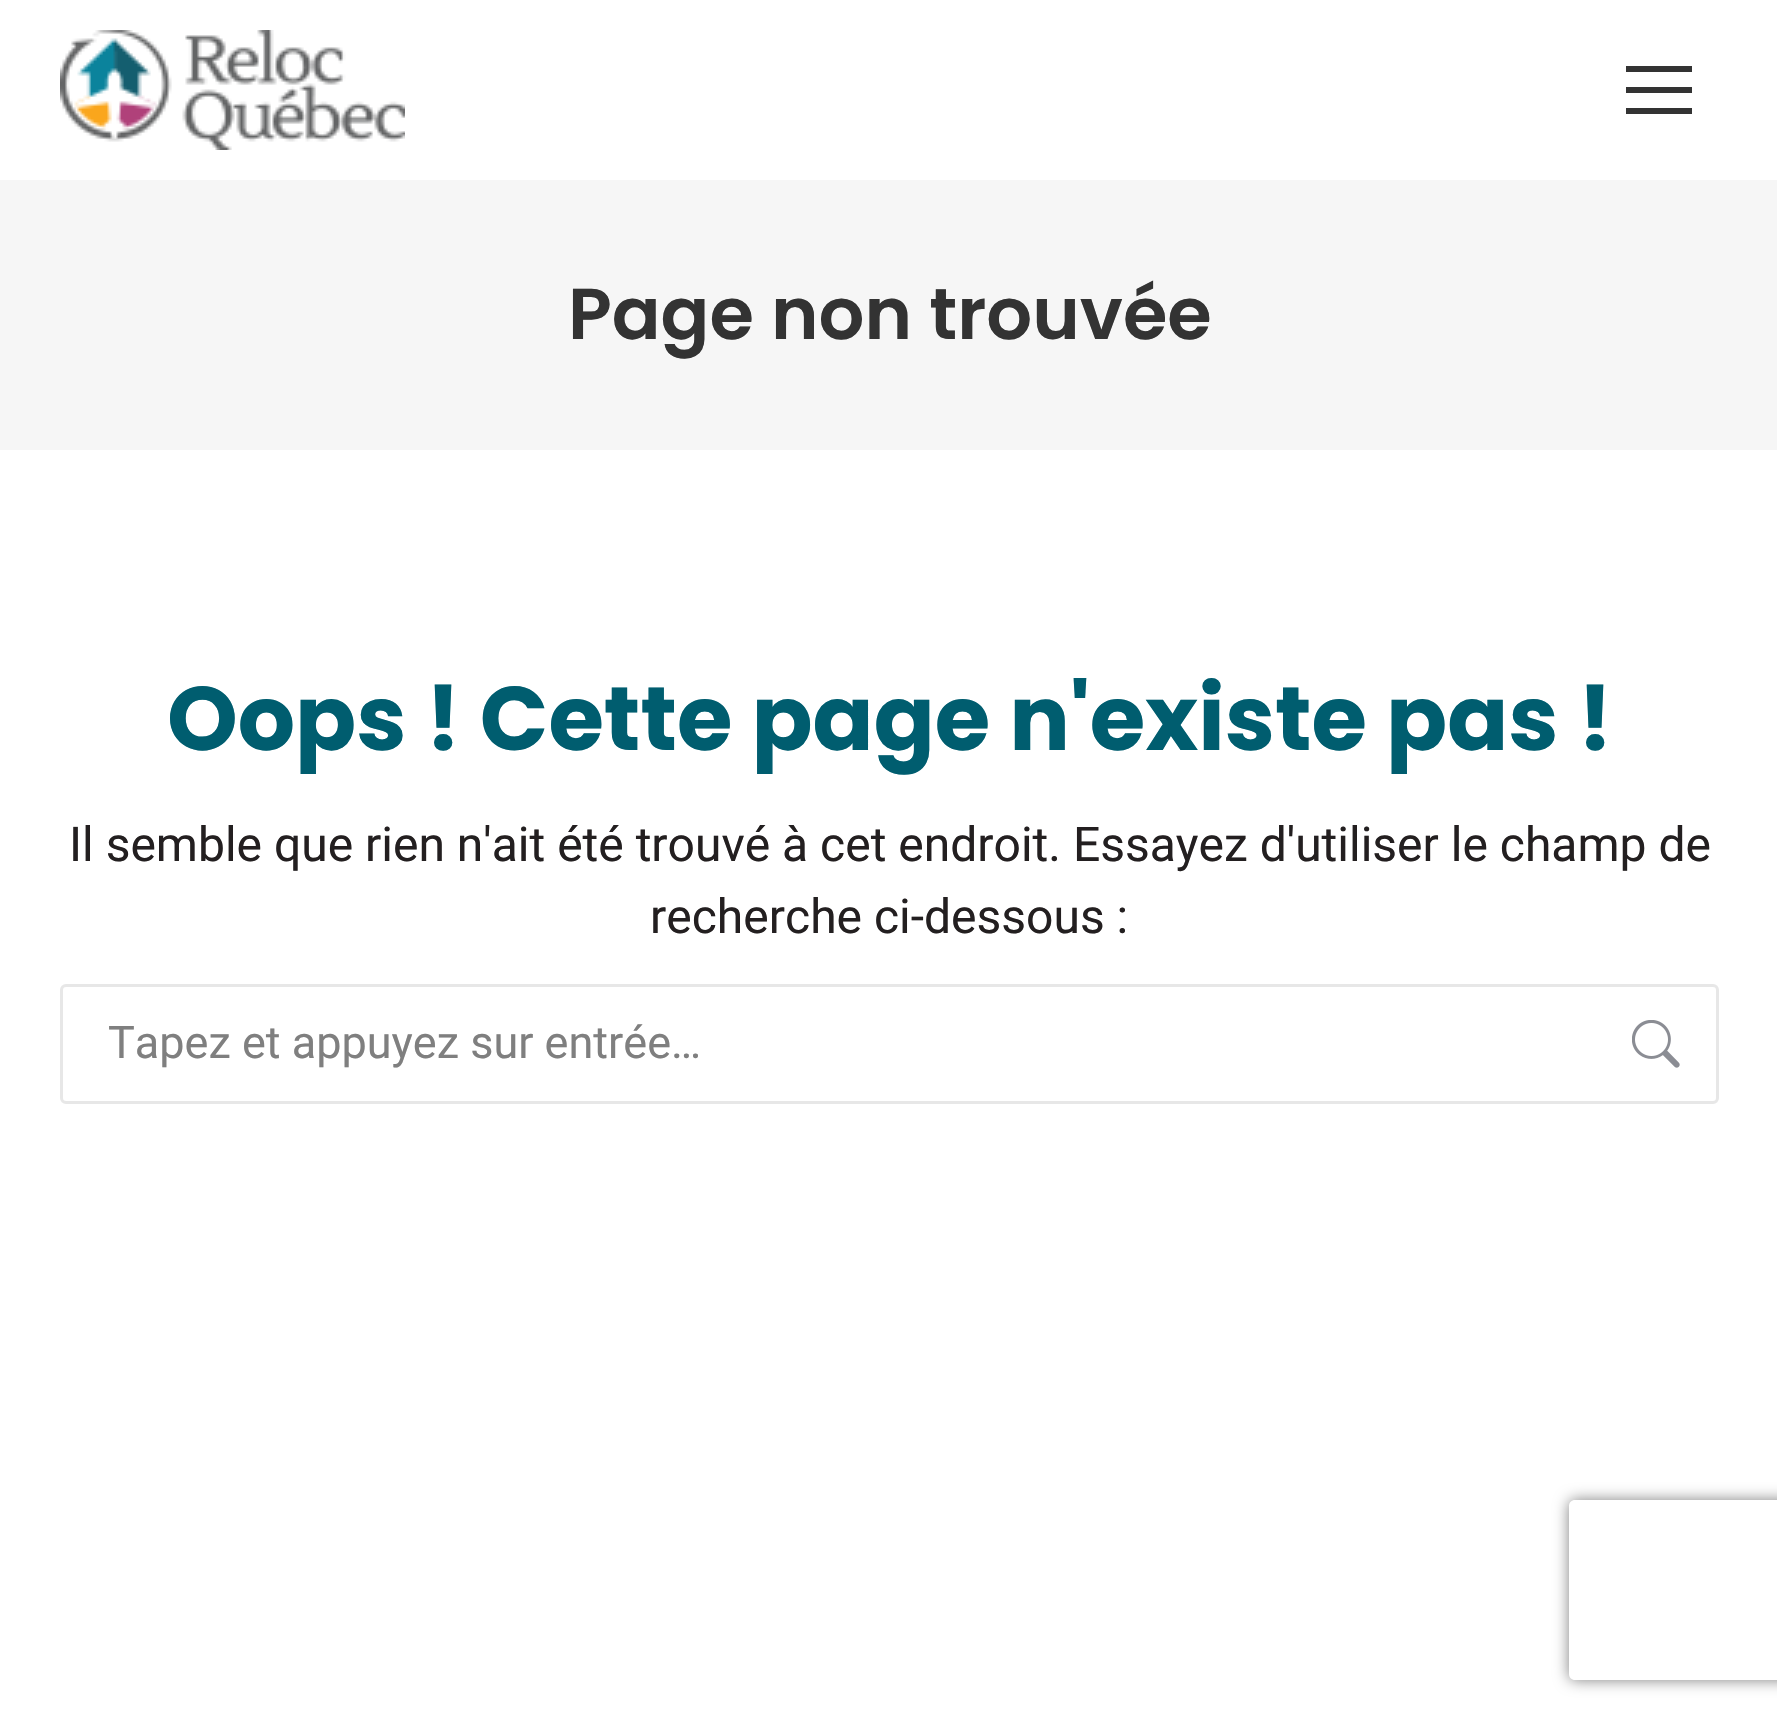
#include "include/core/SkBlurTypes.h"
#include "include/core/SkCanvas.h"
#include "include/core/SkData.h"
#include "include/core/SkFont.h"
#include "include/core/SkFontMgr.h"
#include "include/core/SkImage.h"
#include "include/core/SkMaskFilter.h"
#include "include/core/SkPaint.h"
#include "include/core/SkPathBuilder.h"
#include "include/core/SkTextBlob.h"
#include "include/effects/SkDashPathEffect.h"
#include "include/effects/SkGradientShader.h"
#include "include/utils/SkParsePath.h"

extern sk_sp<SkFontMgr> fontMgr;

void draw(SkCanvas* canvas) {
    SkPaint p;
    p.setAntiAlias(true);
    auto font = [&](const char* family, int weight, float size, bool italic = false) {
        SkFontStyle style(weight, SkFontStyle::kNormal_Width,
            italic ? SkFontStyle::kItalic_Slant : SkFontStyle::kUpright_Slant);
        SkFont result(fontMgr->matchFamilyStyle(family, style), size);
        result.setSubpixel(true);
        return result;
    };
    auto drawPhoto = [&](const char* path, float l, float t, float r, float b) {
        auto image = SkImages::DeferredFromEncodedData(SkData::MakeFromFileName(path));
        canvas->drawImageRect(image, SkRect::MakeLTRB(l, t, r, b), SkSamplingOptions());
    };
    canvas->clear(0xFFFFFFFF);
    drawPhoto("media/1.png", 60, 30, 405, 150);
    {
        const struct { float l, t, r, b; SkColor color; } items[] = {
            {1626, 66, 1692, 72, 0xFF333333},
            {1626, 87, 1692, 93, 0xFF333333},
            {1626, 108, 1692, 114, 0xFF333333},
            {0, 180, 1777, 450, 0xFFF6F6F6},
        };
        for (auto [l, t, r, b, color] : items) {
            p.setColor(color);
            canvas->drawRect(SkRect::MakeLTRB(l, t, r, b), p);
        }
    }
    auto font1 = font("Poppins", 600, 72);
    p.setColor(0xFF333333);
    canvas->drawString("Page non trouvée", 568, 339, font1, p);
    auto font2 = font("Poppins", 700, 90);
    p.setColor(0xFF005D6F);
    canvas->drawString("Oops ! Cette page n'existe pas !", 167, 750, font2, p);
    auto font3 = font("Roboto", 400, 48);
    p.setColor(0xFF231F20);
    canvas->drawString("Il semble que rien n'ait été trouvé à cet endroit. Essayez d'utiliser le champ de", 69, 861, font3, p);
    canvas->drawString("recherche ci-dessous :", 650, 933, font3, p);
    p.setStyle(SkPaint::kStroke_Style);
    p.setStrokeWidth(3);
    p.setColor(0xFFE7E7E7);
    canvas->drawRoundRect(SkRect::MakeLTRB(61.5f, 985.5f, 1717.5f, 1102.5f), 4.5f, 4.5f, p);
    auto font4 = font("Roboto", 400, 45);
    p.setStyle(SkPaint::kFill_Style);
    p.setColor(0xFF7F7F7F);
    canvas->drawString("Tapez et appuyez sur entrée…", 108, 1058, font4, p);
    drawPhoto("media/2.png", 1632, 1020, 1680, 1068);
    canvas->save();
    canvas->clipPath(SkPathBuilder(SkPathFillType::kEvenOdd).moveTo(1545, 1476).lineTo(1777, 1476).lineTo(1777, 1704).lineTo(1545, 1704).close().moveTo(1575, 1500).lineTo(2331, 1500).cubicTo(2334.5f, 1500, 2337, 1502.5f, 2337, 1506).lineTo(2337, 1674).cubicTo(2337, 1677.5f, 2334.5f, 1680, 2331, 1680).lineTo(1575, 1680).cubicTo(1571.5f, 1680, 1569, 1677.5f, 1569, 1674).lineTo(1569, 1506).cubicTo(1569, 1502.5f, 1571.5f, 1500, 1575, 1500).close().detach(), true);
    p.setColor(0xFF808080);
    p.setMaskFilter(SkMaskFilter::MakeBlur(kNormal_SkBlurStyle, 7.5f));
    canvas->drawRoundRect(SkRect::MakeLTRB(1569, 1500, 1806, 1680), 6, 6, p);
    p.setMaskFilter(nullptr);
    canvas->restore();
}
